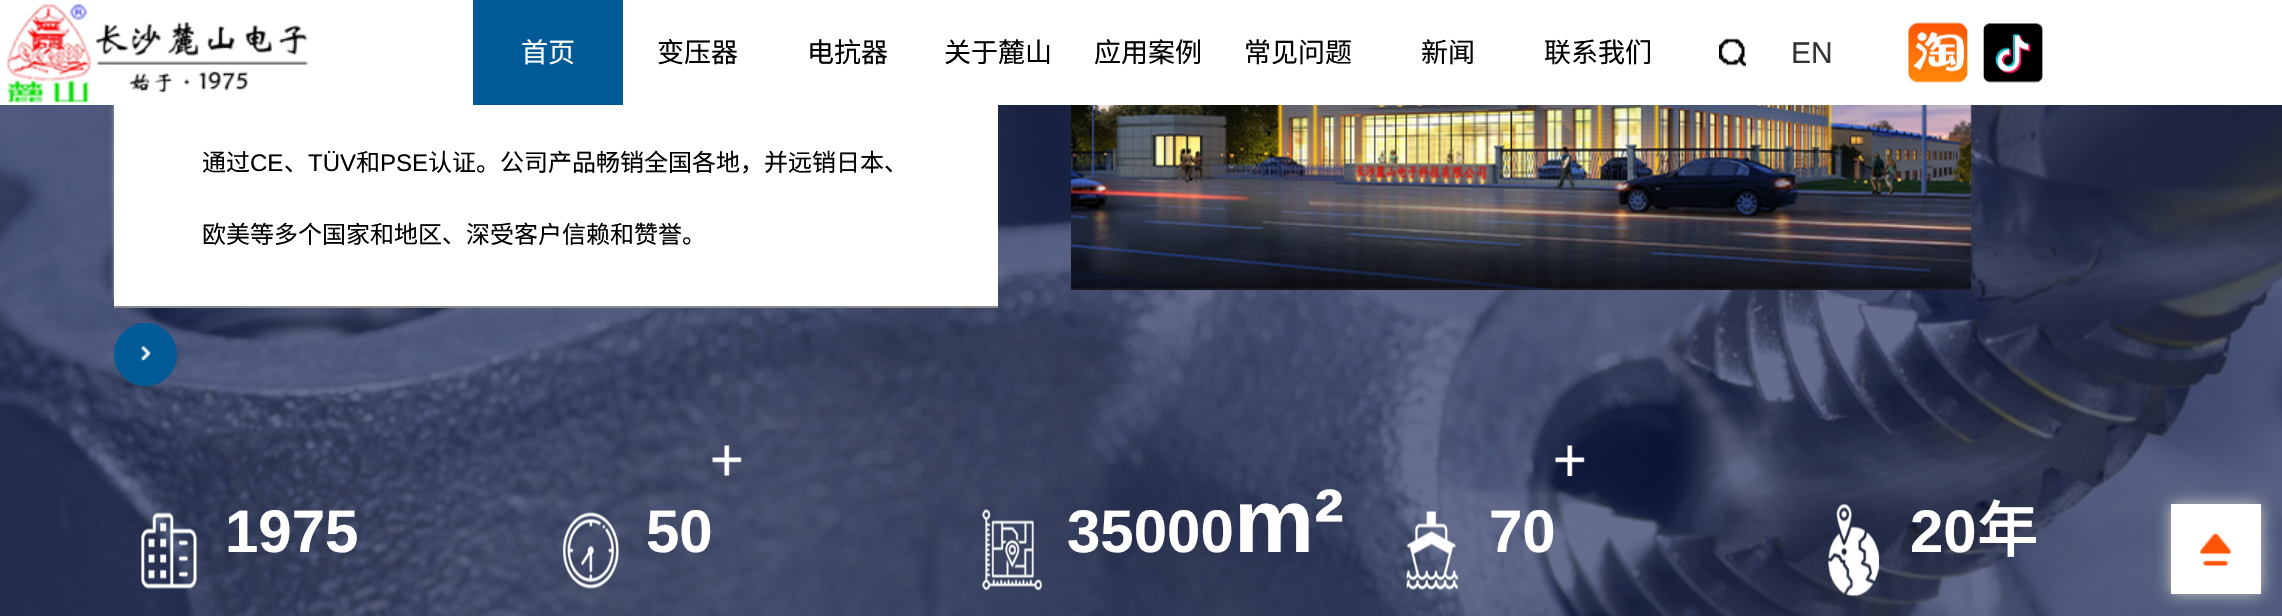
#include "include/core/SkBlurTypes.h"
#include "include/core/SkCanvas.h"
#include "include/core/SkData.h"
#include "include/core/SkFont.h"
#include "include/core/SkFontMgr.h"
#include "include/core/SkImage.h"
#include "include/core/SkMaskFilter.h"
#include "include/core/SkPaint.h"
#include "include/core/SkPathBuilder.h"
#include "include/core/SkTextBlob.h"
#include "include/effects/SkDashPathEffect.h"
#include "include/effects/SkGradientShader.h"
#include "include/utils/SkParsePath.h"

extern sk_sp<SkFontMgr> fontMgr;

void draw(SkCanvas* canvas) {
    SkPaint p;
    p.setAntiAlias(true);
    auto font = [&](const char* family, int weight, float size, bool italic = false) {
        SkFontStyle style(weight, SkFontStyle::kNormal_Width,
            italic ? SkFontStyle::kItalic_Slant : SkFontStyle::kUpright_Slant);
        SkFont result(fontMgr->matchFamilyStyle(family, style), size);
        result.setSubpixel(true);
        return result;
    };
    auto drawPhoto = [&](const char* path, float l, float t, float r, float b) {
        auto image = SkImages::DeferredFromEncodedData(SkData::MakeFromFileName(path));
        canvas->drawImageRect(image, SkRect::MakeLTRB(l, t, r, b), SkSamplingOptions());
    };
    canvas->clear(0xFFFFFFFF);
    drawPhoto("media/5.png", 0, 105, 2282, 616);
    p.setColor(0xFFAAAAAA);
    p.setMaskFilter(SkMaskFilter::MakeBlur(kNormal_SkBlurStyle, 2));
    canvas->drawRect(SkRect::MakeLTRB(114, -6, 989, 299), p);
    p.setMaskFilter(nullptr);
    p.setColor(0xFFFFFFFF);
    canvas->drawRect(SkRect::MakeLTRB(110, 0, 993, 105), p);
    drawPhoto("media/1.png", 7, 4, 308, 103);
    p.setColor(0xFF025A96);
    canvas->drawRect(SkRect::MakeLTRB(473, 0, 623, 105), p);
    auto font1 = font("Noto Sans CJK SC", 400, 27);
    p.setColor(0xFFFFFFFF);
    canvas->drawString("首页", 521, 62, font1, p);
    p.setColor(0xFF000000);
    {
        const struct { const char* s; float x, y; } items[] = {
            {"变压器", 657, 62},
            {"电抗器", 807, 62},
            {"关于麓山", 944, 62},
            {"应用案例", 1094, 62},
            {"常见问题", 1244, 62},
            {"新闻", 1421, 62},
            {"联系我们", 1544, 62},
        };
        for (auto [s, x, y] : items) {
            canvas->drawString(s, x, y, font1, p);
        }
    }
    drawPhoto("media/2.png", 1719, 38, 1746, 67);
    auto font2 = font("Liberation Sans", 400, 30);
    p.setColor(0xFF333333);
    canvas->drawString("EN", 1791, 63, font2, p);
    drawPhoto("media/3.png", 1908, 22, 1968, 83);
    drawPhoto("media/4.png", 1983, 23, 2043, 83);
    p.setColor(0xFFFFFFFF);
    canvas->drawRect(SkRect::MakeLTRB(114, 105, 998, 306), p);
    p.setColor(0xFF8B8989);
    canvas->drawRect(SkRect::MakeLTRB(114, 306, 998, 308), p);
    auto font3 = font("Noto Sans CJK SC", 400, 24);
    p.setColor(0xFF000000);
    canvas->drawString("通过", 202, 171, font3, p);
    auto font4 = font("Liberation Sans", 400, 24);
    canvas->drawString("CE", 250, 171, font4, p);
    canvas->drawString("、", 284, 171, font3, p);
    canvas->drawString("TÜV", 308, 171, font4, p);
    canvas->drawString("和", 356, 171, font3, p);
    canvas->drawString("PSE", 380, 171, font4, p);
    canvas->drawString("认证。公司产品畅销全国各地，并远销日本、", 428, 171, font3, p);
    canvas->drawString("欧美等多个国家和地区、深受客户信赖和赞誉。", 202, 243, font3, p);
    p.setColor(0xFF025A96);
    canvas->drawCircle(145.5f, 354.5f, 31.5f, p);
    drawPhoto("media/6.png", 141, 346, 151, 361);
    p.setStyle(SkPaint::kStroke_Style);
    p.setStrokeWidth(2);
    canvas->drawCircle(145.5f, 354.5f, 30.5f, p);
    drawPhoto("media/7.png", 1071, 105, 1972, 290);
    drawPhoto("media/8.png", 141, 512, 197, 589);
    auto font5 = font("Liberation Sans", 700, 60);
    p.setStyle(SkPaint::kFill_Style);
    p.setColor(0xFFFFFFFF);
    canvas->drawString("1975", 225, 552, font5, p);
    drawPhoto("media/9.png", 563, 512, 619, 589);
    drawPhoto("media/10.png", 712, 445, 742, 476);
    canvas->drawString("50", 646, 552, font5, p);
    drawPhoto("media/11.png", 982, 509, 1042, 591);
    canvas->drawString("35000", 1067, 552, font5, p);
    auto font6 = font("Liberation Sans", 700, 90);
    canvas->drawString("m²", 1234, 552, font6, p);
    drawPhoto("media/12.png", 1406, 511, 1458, 590);
    drawPhoto("media/13.png", 1555, 445, 1585, 476);
    canvas->drawString("70", 1489, 552, font5, p);
    drawPhoto("media/14.png", 1828, 504, 1880, 596);
    canvas->drawString("20", 1910, 552, font5, p);
    auto font7 = font("Noto Sans CJK SC", 700, 60);
    canvas->drawString("年", 1977, 552, font7, p);
    p.setColor(0xFFCCCCCC);
    p.setMaskFilter(SkMaskFilter::MakeBlur(kNormal_SkBlurStyle, 7.5f));
    canvas->drawRect(SkRect::MakeLTRB(2171, 504, 2261, 594), p);
    p.setMaskFilter(nullptr);
    p.setColor(0xFFFFFFFF);
    canvas->drawRect(SkRect::MakeLTRB(2171, 504, 2261, 594), p);
    drawPhoto("media/15.png", 2200, 533, 2231, 566);
}
